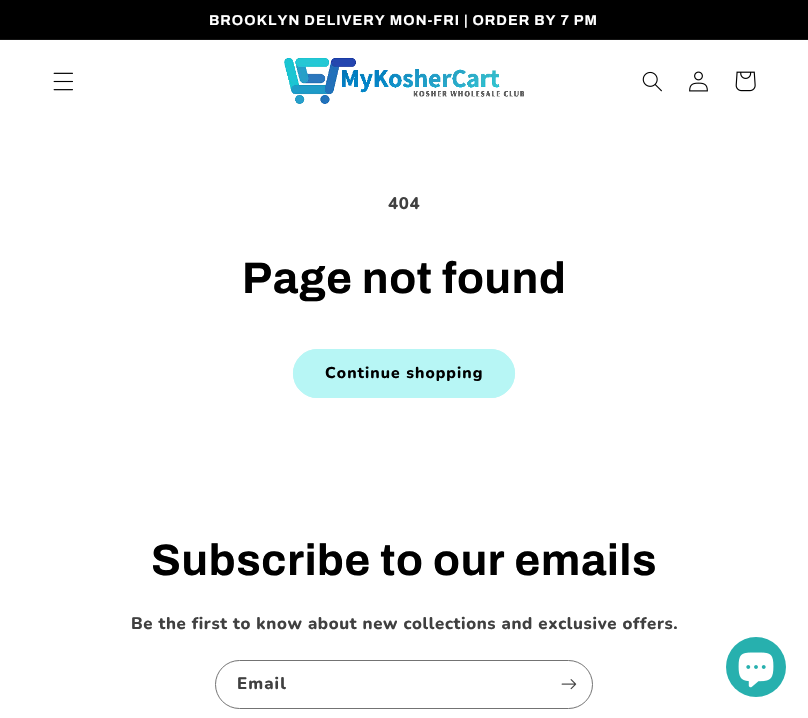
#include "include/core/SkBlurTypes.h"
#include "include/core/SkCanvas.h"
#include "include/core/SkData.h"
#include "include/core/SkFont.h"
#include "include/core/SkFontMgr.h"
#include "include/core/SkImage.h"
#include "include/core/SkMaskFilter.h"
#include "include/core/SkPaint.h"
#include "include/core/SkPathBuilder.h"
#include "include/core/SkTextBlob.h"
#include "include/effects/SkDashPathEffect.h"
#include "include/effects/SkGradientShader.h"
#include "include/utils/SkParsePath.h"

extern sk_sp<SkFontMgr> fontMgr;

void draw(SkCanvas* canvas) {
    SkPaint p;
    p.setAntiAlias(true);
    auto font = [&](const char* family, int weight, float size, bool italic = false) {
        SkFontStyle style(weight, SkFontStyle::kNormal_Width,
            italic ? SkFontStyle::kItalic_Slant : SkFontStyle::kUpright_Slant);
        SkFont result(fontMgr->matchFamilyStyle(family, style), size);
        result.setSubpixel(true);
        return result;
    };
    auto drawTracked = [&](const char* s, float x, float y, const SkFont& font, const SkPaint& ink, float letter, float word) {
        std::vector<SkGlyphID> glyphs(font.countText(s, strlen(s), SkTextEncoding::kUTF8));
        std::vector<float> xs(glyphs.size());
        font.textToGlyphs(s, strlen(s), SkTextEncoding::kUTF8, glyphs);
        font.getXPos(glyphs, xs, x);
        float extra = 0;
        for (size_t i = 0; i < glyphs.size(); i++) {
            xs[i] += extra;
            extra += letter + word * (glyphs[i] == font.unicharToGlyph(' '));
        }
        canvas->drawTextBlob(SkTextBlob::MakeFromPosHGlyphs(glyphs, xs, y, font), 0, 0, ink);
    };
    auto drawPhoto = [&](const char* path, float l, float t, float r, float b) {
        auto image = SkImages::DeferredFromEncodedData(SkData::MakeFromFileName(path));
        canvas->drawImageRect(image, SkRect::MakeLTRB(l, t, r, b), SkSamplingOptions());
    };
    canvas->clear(0xFFFFFFFF);
    p.setColor(0xFF000000);
    canvas->drawRect(SkRect::MakeLTRB(0, 0, 808, 39), p);
    p.setColor(0xFF141414);
    canvas->drawRect(SkRect::MakeLTRB(0, 39, 808, 40), p);
    auto font1 = font("Archivo", 700, 14.3f);
    p.setColor(0xFFFFFFFF);
    drawTracked("BROOKLYN DELIVERY MON-FRI | ORDER BY 7 PM", 209, 25, font1, p, 1.05f, 0);
    drawPhoto("media/1.png", 53, 72, 73, 91);
    drawPhoto("media/2.png", 284, 58, 524, 104);
    drawPhoto("media/3.png", 642, 71, 662, 92);
    drawPhoto("media/4.png", 689, 71, 708, 92);
    drawPhoto("media/5.png", 735, 71, 756, 92);
    auto font2 = font("Nunito", 800, 16.8f);
    p.setColor(0xFF404040);
    drawTracked("404", 388, 209, font2, p, 0.63f, 0);
    auto font3 = font("Archivo", 700, 44);
    p.setColor(0xFF000000);
    drawTracked("Page not found", 242, 293, font3, p, 0.7f, 0);
    p.setColor(0xFFB7F6F5);
    canvas->drawRoundRect(SkRect::MakeLTRB(293, 349, 515, 398), 24.5f, 24.5f, p);
    p.setStyle(SkPaint::kStroke_Style);
    p.setStrokeWidth(1);
    canvas->drawRoundRect(SkRect::MakeLTRB(293.5f, 349.5f, 514.5f, 397.5f), 24, 24, p);
    auto font4 = font("Nunito", 800, 15.75f);
    p.setStyle(SkPaint::kFill_Style);
    p.setColor(0xFF000000);
    drawTracked("Continue shopping", 325, 378, font4, p, 1.05f, 0);
    drawTracked("Subscribe to our emails", 151, 575, font3, p, 0.7f, 0);
    p.setColor(0xFF404040);
    drawTracked("Be the first to know about new collections and exclusive offers.", 131, 629, font2, p, 0.63f, 0);
    p.setStyle(SkPaint::kStroke_Style);
    p.setColor(0xFF737373);
    canvas->drawRoundRect(SkRect::MakeLTRB(215.5f, 660.5f, 592.5f, 708.5f), 24, 24, p);
    p.setStyle(SkPaint::kFill_Style);
    p.setColor(0xFF404040);
    drawTracked("Email", 237, 689, font2, p, 1.05f, 0);
    drawPhoto("media/6.png", 561, 679, 577, 690);
    p.setColor(0xFF27B0AE);
    canvas->drawCircle(756, 667, 30, p);
    drawPhoto("media/7.png", 738, 652, 774, 688);
}
